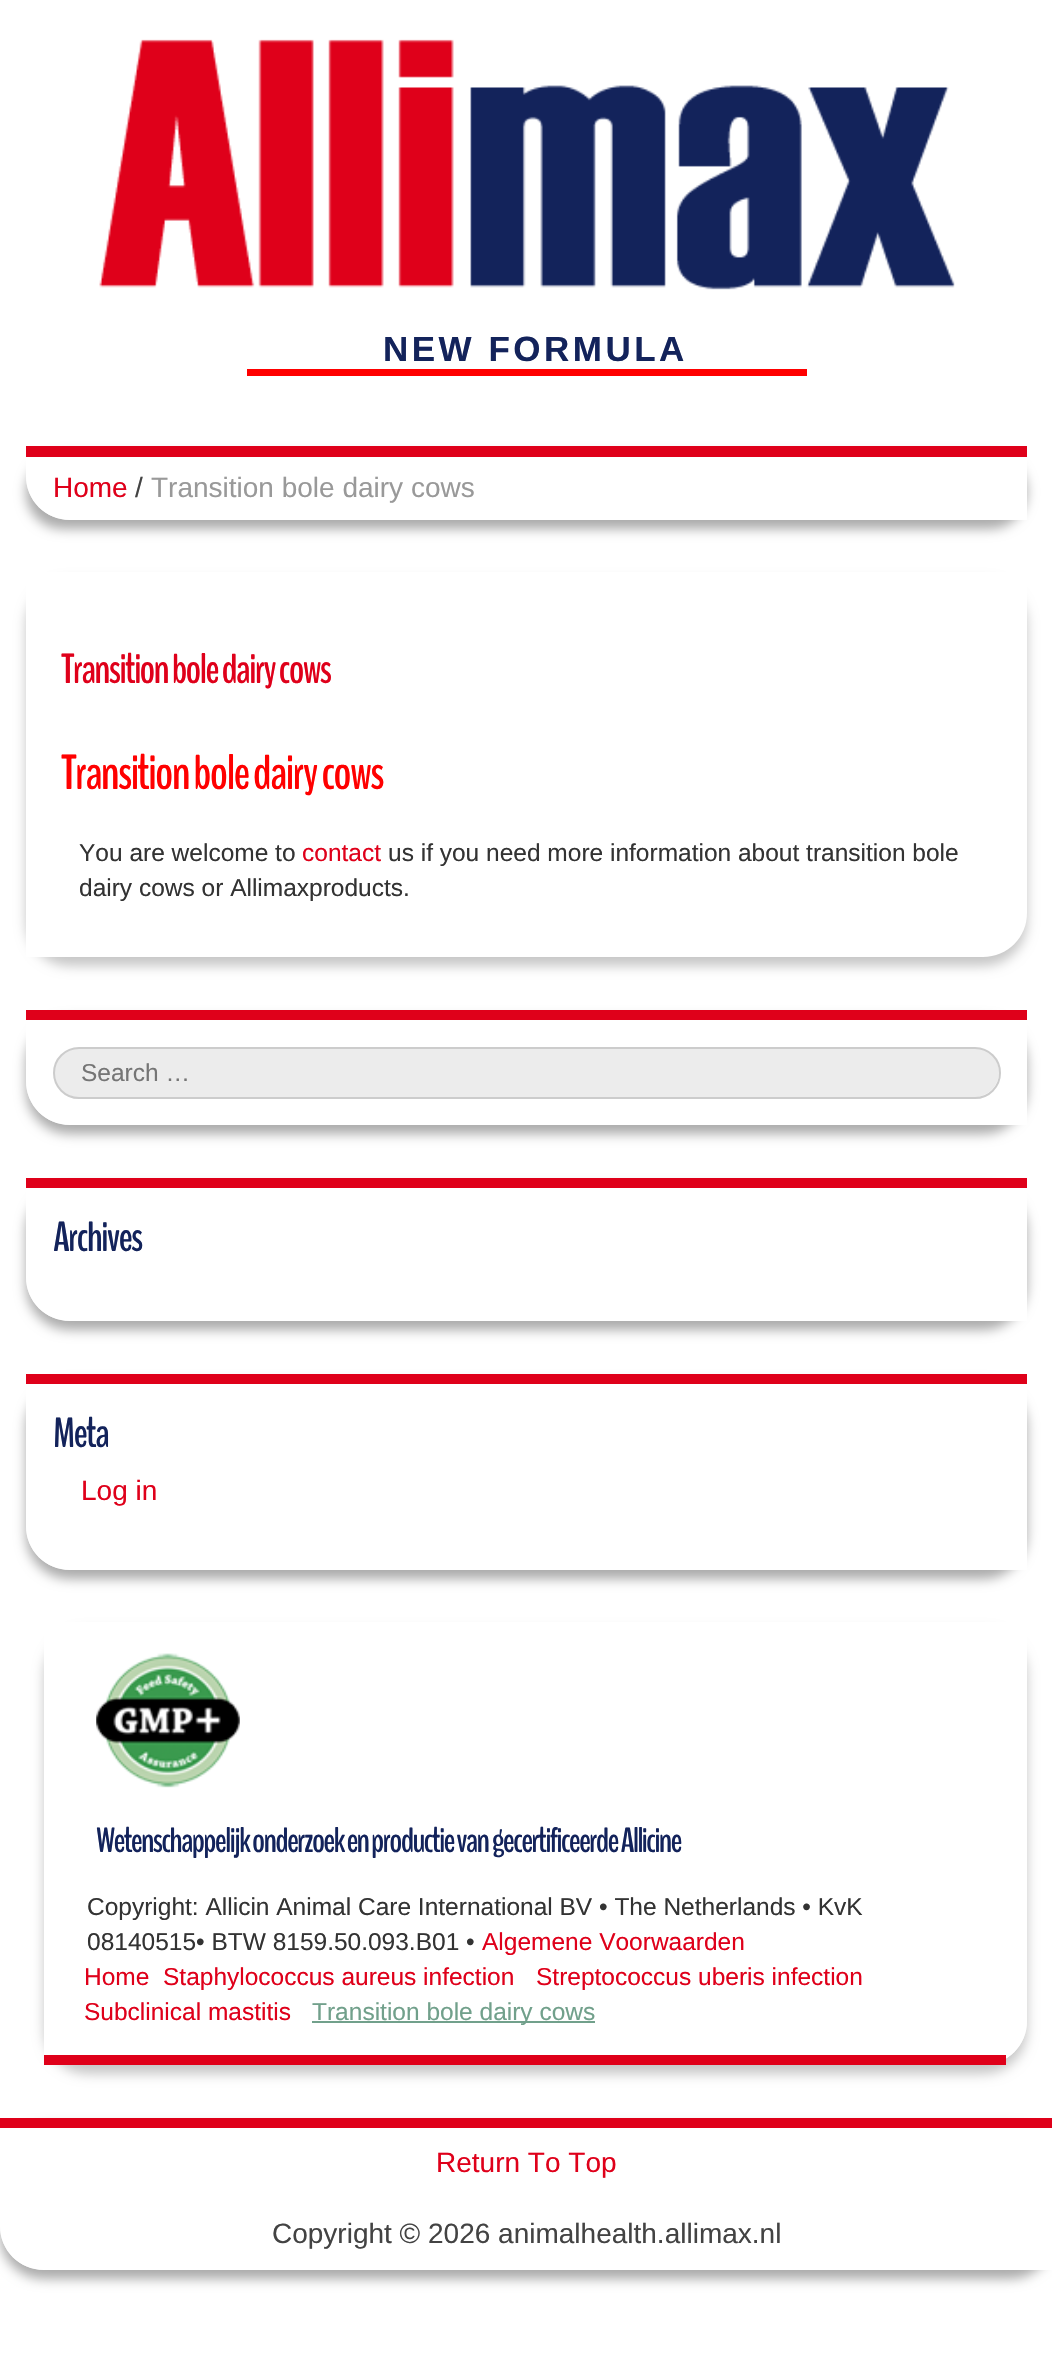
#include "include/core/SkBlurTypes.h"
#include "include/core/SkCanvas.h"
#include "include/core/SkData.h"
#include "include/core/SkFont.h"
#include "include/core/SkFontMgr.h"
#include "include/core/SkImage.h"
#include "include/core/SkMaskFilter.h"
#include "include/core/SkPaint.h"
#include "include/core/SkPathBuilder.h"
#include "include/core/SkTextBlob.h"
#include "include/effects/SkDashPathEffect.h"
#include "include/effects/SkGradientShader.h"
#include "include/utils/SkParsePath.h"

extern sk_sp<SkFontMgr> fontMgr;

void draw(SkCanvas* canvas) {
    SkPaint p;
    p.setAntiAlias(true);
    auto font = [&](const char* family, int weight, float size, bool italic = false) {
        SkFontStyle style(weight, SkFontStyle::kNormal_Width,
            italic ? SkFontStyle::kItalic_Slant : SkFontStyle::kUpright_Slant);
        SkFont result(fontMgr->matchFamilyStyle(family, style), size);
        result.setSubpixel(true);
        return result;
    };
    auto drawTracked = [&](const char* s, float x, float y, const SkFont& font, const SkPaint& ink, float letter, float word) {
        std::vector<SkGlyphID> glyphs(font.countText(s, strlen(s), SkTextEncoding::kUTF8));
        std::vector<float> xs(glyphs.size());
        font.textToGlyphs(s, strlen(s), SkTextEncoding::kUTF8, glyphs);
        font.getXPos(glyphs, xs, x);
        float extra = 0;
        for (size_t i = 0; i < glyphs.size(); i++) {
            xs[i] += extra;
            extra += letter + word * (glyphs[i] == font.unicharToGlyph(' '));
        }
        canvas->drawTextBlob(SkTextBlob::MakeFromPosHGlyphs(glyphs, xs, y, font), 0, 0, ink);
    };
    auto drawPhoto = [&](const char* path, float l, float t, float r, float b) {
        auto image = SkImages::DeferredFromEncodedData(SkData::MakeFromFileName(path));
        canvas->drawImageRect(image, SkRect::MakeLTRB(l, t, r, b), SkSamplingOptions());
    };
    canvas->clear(0xFFFFFFFF);
    drawPhoto("media/1.png", 99, 39, 955, 290);
    p.setColor(0xFFFF0000);
    canvas->drawRect(SkRect::MakeLTRB(247, 369, 807, 376), p);
    auto font1 = font("Liberation Sans", 700, 35);
    p.setColor(0xFF13235B);
    drawTracked("NEW FORMULA", 383, 361, font1, p, 3.5f, 0);
    canvas->save();
    canvas->clipPath(SkPathBuilder(SkPathFillType::kEvenOdd).moveTo(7, 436).lineTo(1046, 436).lineTo(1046, 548).lineTo(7, 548).close().moveTo(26, 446).lineTo(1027, 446).lineTo(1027, 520).lineTo(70, 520).cubicTo(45.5f, 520, 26, 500.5f, 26, 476).close().detach(), true);
    p.setColor(0x54000000);
    p.setMaskFilter(SkMaskFilter::MakeBlur(kNormal_SkBlurStyle, 6));
    canvas->drawRoundRect(SkRect::MakeLTRB(26, 455, 1027, 529), 44, 44, p);
    p.setMaskFilter(nullptr);
    canvas->restore();
    p.setColor(0xC9FFFFFF);
    canvas->drawPath(SkPathBuilder().moveTo(26, 446).lineTo(1027, 446).lineTo(1027, 520).lineTo(70, 520).cubicTo(45.5f, 520, 26, 500.5f, 26, 476).close().detach(), p);
    p.setColor(0xFFDF001A);
    canvas->drawRect(SkRect::MakeLTRB(26, 446, 1027, 457), p);
    auto font2 = font("Liberation Sans", 400, 28);
    canvas->drawString("Home", 53, 497, font2, p);
    p.setColor(0xFF434343);
    canvas->drawString("/", 135, 497, font2, p);
    p.setColor(0xFF999999);
    canvas->drawString("Transition bole dairy cows", 151, 497, font2, p);
    p.setColor(0x38000000);
    p.setMaskFilter(SkMaskFilter::MakeBlur(kNormal_SkBlurStyle, 6));
    canvas->drawRoundRect(SkRect::MakeLTRB(26, 581, 1027, 966), 44, 44, p);
    p.setMaskFilter(nullptr);
    p.setColor(0xFFFFFFFF);
    canvas->drawPath(SkPathBuilder().moveTo(26, 572).lineTo(1027, 572).lineTo(1027, 913).cubicTo(1027, 937.5f, 1007.5f, 957, 983, 957).lineTo(26, 957).close().detach(), p);
    auto font3 = font("BenchNine", 700, 42);
    p.setColor(0xFFDF001A);
    drawTracked("Transition bole dairy cows", 61, 683, font3, p, -1.75f, 0);
    auto font4 = font("BenchNine", 700, 49);
    p.setColor(0xFFFF0000);
    drawTracked("Transition bole dairy cows", 61, 789, font4, p, -1.75f, 0);
    auto font5 = font("Liberation Sans", 400, 24.5f);
    p.setColor(0xFF333333);
    canvas->drawString("You are welcome to", 79, 861, font5, p);
    p.setColor(0xFFDF001A);
    canvas->drawString("contact", 302, 861, font5, p);
    p.setColor(0xFF333333);
    canvas->drawString("us if you need more information about transition bole", 388, 861, font5, p);
    canvas->drawString("dairy cows or Allimaxproducts.", 79, 896, font5, p);
    canvas->save();
    canvas->clipPath(SkPathBuilder(SkPathFillType::kEvenOdd).moveTo(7, 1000).lineTo(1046, 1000).lineTo(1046, 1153).lineTo(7, 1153).close().moveTo(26, 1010).lineTo(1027, 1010).lineTo(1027, 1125).lineTo(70, 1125).cubicTo(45.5f, 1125, 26, 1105.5f, 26, 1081).close().detach(), true);
    p.setColor(0x54000000);
    p.setMaskFilter(SkMaskFilter::MakeBlur(kNormal_SkBlurStyle, 6));
    canvas->drawRoundRect(SkRect::MakeLTRB(26, 1019, 1027, 1134), 44, 44, p);
    p.setMaskFilter(nullptr);
    canvas->restore();
    p.setColor(0xC9FFFFFF);
    canvas->drawPath(SkPathBuilder().moveTo(26, 1010).lineTo(1027, 1010).lineTo(1027, 1125).lineTo(70, 1125).cubicTo(45.5f, 1125, 26, 1105.5f, 26, 1081).close().detach(), p);
    p.setColor(0xFFDF001A);
    canvas->drawRect(SkRect::MakeLTRB(26, 1010, 1027, 1020), p);
    p.setColor(0xFFECECEC);
    canvas->drawPath(SkPathBuilder().moveTo(78, 1048).cubicTo(61, 1048, 49, 1068, 56, 1083).cubicTo(60, 1090, 67, 1095, 74, 1097).lineTo(974, 1097).cubicTo(999, 1097, 1008, 1065, 988, 1052).cubicTo(984, 1049, 979, 1048, 974, 1048).close().detach(), p);
    p.setStyle(SkPaint::kStroke_Style);
    p.setStrokeWidth(2);
    p.setColor(0xFFCCCCCC);
    canvas->drawRoundRect(SkRect::MakeLTRB(54, 1048, 1000, 1098), 25, 25, p);
    p.setStyle(SkPaint::kFill_Style);
    p.setColor(0xFF757575);
    canvas->drawString("Search …", 81, 1081, font5, p);
    canvas->save();
    canvas->clipPath(SkPathBuilder(SkPathFillType::kEvenOdd).moveTo(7, 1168).lineTo(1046, 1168).lineTo(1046, 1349).lineTo(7, 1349).close().moveTo(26, 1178).lineTo(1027, 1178).lineTo(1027, 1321).lineTo(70, 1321).cubicTo(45.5f, 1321, 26, 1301.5f, 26, 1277).close().detach(), true);
    p.setColor(0x54000000);
    p.setMaskFilter(SkMaskFilter::MakeBlur(kNormal_SkBlurStyle, 6));
    canvas->drawRoundRect(SkRect::MakeLTRB(26, 1187, 1027, 1330), 44, 44, p);
    p.setMaskFilter(nullptr);
    canvas->restore();
    p.setColor(0xC9FFFFFF);
    canvas->drawPath(SkPathBuilder().moveTo(26, 1178).lineTo(1027, 1178).lineTo(1027, 1321).lineTo(70, 1321).cubicTo(45.5f, 1321, 26, 1301.5f, 26, 1277).close().detach(), p);
    p.setColor(0xFFDF001A);
    canvas->drawRect(SkRect::MakeLTRB(26, 1178, 1027, 1188), p);
    p.setColor(0xFF13235B);
    drawTracked("Archives", 53, 1251, font3, p, -1.75f, 0);
    canvas->save();
    canvas->clipPath(SkPathBuilder(SkPathFillType::kEvenOdd).moveTo(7, 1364).lineTo(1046, 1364).lineTo(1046, 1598).lineTo(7, 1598).close().moveTo(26, 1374).lineTo(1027, 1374).lineTo(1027, 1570).lineTo(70, 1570).cubicTo(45.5f, 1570, 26, 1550.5f, 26, 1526).close().detach(), true);
    p.setColor(0x54000000);
    p.setMaskFilter(SkMaskFilter::MakeBlur(kNormal_SkBlurStyle, 6));
    canvas->drawRoundRect(SkRect::MakeLTRB(26, 1383, 1027, 1579), 44, 44, p);
    p.setMaskFilter(nullptr);
    canvas->restore();
    p.setColor(0xC9FFFFFF);
    canvas->drawPath(SkPathBuilder().moveTo(26, 1374).lineTo(1027, 1374).lineTo(1027, 1570).lineTo(70, 1570).cubicTo(45.5f, 1570, 26, 1550.5f, 26, 1526).close().detach(), p);
    p.setColor(0xFFDF001A);
    canvas->drawRect(SkRect::MakeLTRB(26, 1374, 1027, 1384), p);
    p.setColor(0xFF13235B);
    drawTracked("Meta", 53, 1447, font3, p, -1.75f, 0);
    p.setColor(0xFFDF001A);
    canvas->drawString("Log in", 81, 1500, font2, p);
    canvas->save();
    canvas->clipPath(SkPathBuilder(SkPathFillType::kEvenOdd).moveTo(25, 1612).lineTo(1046, 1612).lineTo(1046, 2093).lineTo(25, 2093).close().moveTo(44, 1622).lineTo(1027, 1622).lineTo(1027, 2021).cubicTo(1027, 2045.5f, 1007.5f, 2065, 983, 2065).lineTo(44, 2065).close().detach(), true);
    p.setColor(0x38000000);
    p.setMaskFilter(SkMaskFilter::MakeBlur(kNormal_SkBlurStyle, 6));
    canvas->drawRoundRect(SkRect::MakeLTRB(44, 1631, 1027, 2074), 44, 44, p);
    p.setMaskFilter(nullptr);
    canvas->restore();
    p.setColor(0xC9FFFFFF);
    canvas->drawPath(SkPathBuilder().moveTo(44, 1622).lineTo(1027, 1622).lineTo(1027, 2021).cubicTo(1027, 2045.5f, 1007.5f, 2065, 983, 2065).lineTo(44, 2065).close().detach(), p);
    p.setColor(0xFFDF001A);
    canvas->drawRect(SkRect::MakeLTRB(44, 2055, 1006, 2065), p);
    drawPhoto("media/2.png", 96, 1653, 240, 1788);
    auto font6 = font("BenchNine", 700, 35);
    p.setColor(0xFF13235B);
    drawTracked("Wetenschappelijk onderzoek en productie van gecertificeerde Allicine", 96, 1852, font6, p, -1.75f, 0);
    p.setColor(0xFF333333);
    canvas->drawString("Copyright: Allicin Animal Care International BV • The Netherlands • KvK", 87, 1915, font5, p);
    canvas->drawString("08140515• BTW 8159.50.093.B01 •", 87, 1950, font5, p);
    p.setColor(0xFFDF001A);
    {
        const struct { const char* s; float x, y; } items[] = {
            {"Algemene Voorwaarden", 482, 1950},
            {"Home", 84, 1985},
            {"Staphylococcus aureus infection", 163, 1985},
            {"Streptococcus uberis infection", 536, 1985},
            {"Subclinical mastitis", 84, 2020},
        };
        for (auto [s, x, y] : items) {
            canvas->drawString(s, x, y, font5, p);
        }
    }
    p.setColor(0xFF71A08B);
    canvas->drawRect(SkRect::MakeLTRB(312, 2021, 595, 2023), p);
    canvas->drawString("Transition bole dairy cows", 312, 2020, font5, p);
    canvas->save();
    canvas->clipPath(SkPathBuilder(SkPathFillType::kEvenOdd).moveTo(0, 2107).lineTo(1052, 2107).lineTo(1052, 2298).lineTo(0, 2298).close().moveTo(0, 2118).lineTo(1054, 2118).lineTo(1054, 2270).lineTo(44, 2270).cubicTo(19.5f, 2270, 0, 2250.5f, 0, 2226).close().detach(), true);
    p.setColor(0x54000000);
    p.setMaskFilter(SkMaskFilter::MakeBlur(kNormal_SkBlurStyle, 6));
    canvas->drawRoundRect(SkRect::MakeLTRB(0, 2126, 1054, 2279), 44, 44, p);
    p.setMaskFilter(nullptr);
    canvas->restore();
    p.setColor(0xC9FFFFFF);
    canvas->drawPath(SkPathBuilder().moveTo(0, 2118).lineTo(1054, 2118).lineTo(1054, 2270).lineTo(44, 2270).cubicTo(19.5f, 2270, 0, 2250.5f, 0, 2226).close().detach(), p);
    p.setColor(0xFFDF001A);
    canvas->drawRect(SkRect::MakeLTRB(0, 2118, 1052, 2128), p);
    canvas->drawString("Return To Top", 436, 2172, font2, p);
    p.setColor(0xFF434343);
    canvas->drawString("Copyright © 2026 animalhealth.allimax.nl", 272, 2243, font2, p);
}
